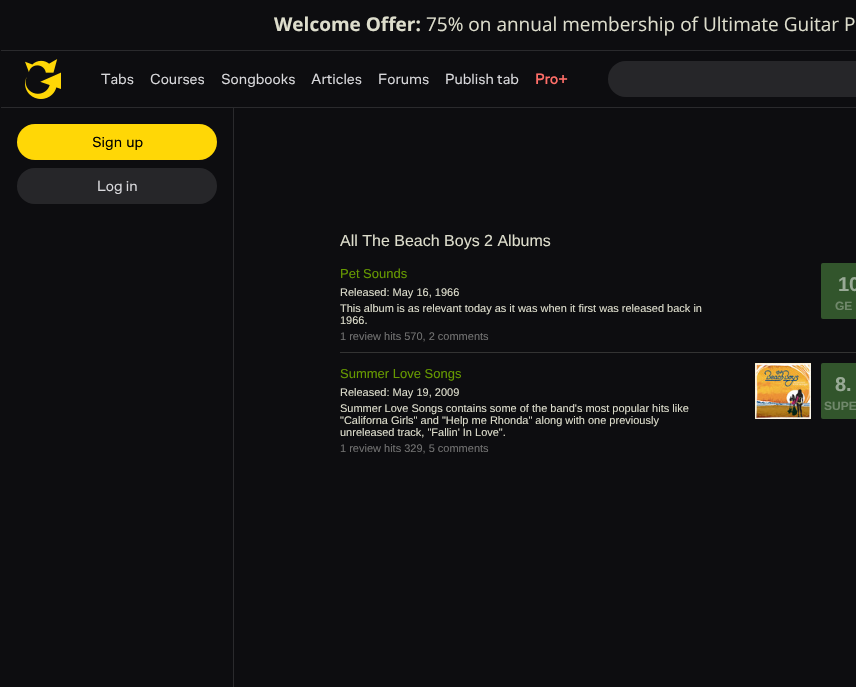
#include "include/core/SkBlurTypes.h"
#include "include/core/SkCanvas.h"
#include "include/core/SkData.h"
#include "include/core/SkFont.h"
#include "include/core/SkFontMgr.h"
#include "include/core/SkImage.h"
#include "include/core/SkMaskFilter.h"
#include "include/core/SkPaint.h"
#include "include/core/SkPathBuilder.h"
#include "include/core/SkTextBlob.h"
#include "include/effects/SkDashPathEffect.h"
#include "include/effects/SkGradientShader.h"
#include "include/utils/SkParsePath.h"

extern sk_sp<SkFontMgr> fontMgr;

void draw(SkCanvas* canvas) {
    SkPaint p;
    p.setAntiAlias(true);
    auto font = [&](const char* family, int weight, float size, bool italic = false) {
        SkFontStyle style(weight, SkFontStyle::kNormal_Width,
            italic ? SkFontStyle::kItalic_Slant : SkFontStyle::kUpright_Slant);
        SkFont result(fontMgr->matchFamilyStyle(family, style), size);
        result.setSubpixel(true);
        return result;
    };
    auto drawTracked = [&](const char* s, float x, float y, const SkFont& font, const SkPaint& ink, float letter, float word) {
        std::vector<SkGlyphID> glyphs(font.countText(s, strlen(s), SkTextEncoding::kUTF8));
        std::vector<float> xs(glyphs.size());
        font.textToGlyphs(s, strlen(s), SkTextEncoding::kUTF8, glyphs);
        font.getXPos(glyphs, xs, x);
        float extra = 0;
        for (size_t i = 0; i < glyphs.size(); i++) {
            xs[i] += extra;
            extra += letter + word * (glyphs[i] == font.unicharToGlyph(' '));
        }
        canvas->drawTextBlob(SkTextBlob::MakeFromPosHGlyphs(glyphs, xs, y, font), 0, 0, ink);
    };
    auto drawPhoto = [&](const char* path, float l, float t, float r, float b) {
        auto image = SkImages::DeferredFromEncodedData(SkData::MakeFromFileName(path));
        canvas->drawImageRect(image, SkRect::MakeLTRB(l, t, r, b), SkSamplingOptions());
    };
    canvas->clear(0xFF0D0D10);
    p.setColor(0xFF2A2A2D);
    canvas->drawRect(SkRect::MakeLTRB(1, 50, 856, 51), p);
    auto font1 = font("Open Sans", 700, 19);
    p.setColor(0xFFDDDDCC);
    canvas->drawString("Welcome Offer:", 274, 31, font1, p);
    auto font2 = font("Open Sans", 400, 19);
    canvas->drawString("75% on annual membership of Ultimate Guitar P", 426, 31, font2, p);
    p.setColor(0xFF2A2A2D);
    canvas->drawRect(SkRect::MakeLTRB(1, 107, 856, 108), p);
    drawPhoto("media/1.png", 25, 59, 61, 99);
    auto font3 = font("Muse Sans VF", 400, 15);
    p.setColor(0xFFD9D9DC);
    {
        const struct { const char* s; float x, y; } items[] = {
            {"Tabs", 101, 84},
            {"Courses", 150, 84},
            {"Songbooks", 221, 84},
            {"Articles", 311, 84},
            {"Forums", 378, 84},
            {"Publish tab", 445, 84},
        };
        for (auto [s, x, y] : items) {
            canvas->drawString(s, x, y, font3, p);
        }
    }
    auto font4 = font("Muse Sans VF", 700, 15);
    p.setColor(0xFFFF6E68);
    canvas->drawString("Pro+", 535, 84, font4, p);
    p.setColor(0xFF262629);
    canvas->drawRoundRect(SkRect::MakeLTRB(608, 61, 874, 97), 18, 18, p);
    p.setColor(0xFFFFD706);
    canvas->drawRoundRect(SkRect::MakeLTRB(17, 124, 217, 160), 18, 18, p);
    p.setColor(0xFF000000);
    drawTracked("Sign up", 92, 147, font3, p, 0, 1);
    p.setColor(0xFF262629);
    canvas->drawRoundRect(SkRect::MakeLTRB(17, 168, 217, 204), 18, 18, p);
    p.setColor(0xFFD9D9DC);
    canvas->drawString("Log in", 97, 191, font3, p);
    p.setColor(0xFF2A2A2D);
    canvas->drawRect(SkRect::MakeLTRB(233, 108, 234, 687), p);
    auto font5 = font("Liberation Sans", 400, 16);
    p.setColor(0xFFDDDDCC);
    canvas->drawString("All The Beach Boys 2 Albums", 340, 246, font5, p);
    auto font6 = font("Liberation Sans", 400, 13);
    p.setColor(0xFF669900);
    canvas->drawString("Pet Sounds", 340, 278, font6, p);
    auto font7 = font("Liberation Sans", 400, 11);
    p.setColor(0xFFDDDDCC);
    {
        const struct { const char* s; float x, y; } items[] = {
            {"Released: May 16, 1966", 340, 296},
            {"This album is as relevant today as it was when it first was released back in", 340, 312},
            {"1966.", 340, 324},
        };
        for (auto [s, x, y] : items) {
            canvas->drawString(s, x, y, font7, p);
        }
    }
    p.setColor(0xFF707070);
    canvas->drawString("1 review hits 570, 2 comments", 340, 340, font7, p);
    p.setColor(0xFF32552C);
    canvas->drawRoundRect(SkRect::MakeLTRB(821, 263, 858, 319), 2, 2, p);
    auto font8 = font("Liberation Sans", 700, 20);
    p.setColor(0xFF99AA96);
    canvas->drawString("10", 838, 291, font8, p);
    auto font9 = font("Liberation Sans", 700, 12);
    p.setColor(0xFF70886B);
    canvas->drawString("GE", 835, 310, font9, p);
    p.setColor(0xFF333333);
    canvas->drawRect(SkRect::MakeLTRB(340, 352, 856, 353), p);
    p.setColor(0xFF669900);
    canvas->drawString("Summer Love Songs", 340, 378, font6, p);
    p.setColor(0xFFDDDDCC);
    {
        const struct { const char* s; float x, y; } items[] = {
            {"Released: May 19, 2009", 340, 396},
            {"Summer Love Songs contains some of the band's most popular hits like", 340, 412},
            {"\"Californa Girls\" and \"Help me Rhonda\" along with one previously", 340, 424},
            {"unreleased track, \"Fallin' In Love\".", 340, 436},
        };
        for (auto [s, x, y] : items) {
            canvas->drawString(s, x, y, font7, p);
        }
    }
    p.setColor(0xFF707070);
    canvas->drawString("1 review hits 329, 5 comments", 340, 452, font7, p);
    drawPhoto("media/2.png", 755, 363, 811, 419);
    p.setColor(0xFF32552C);
    canvas->drawRoundRect(SkRect::MakeLTRB(821, 363, 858, 419), 2, 2, p);
    p.setColor(0xFF99AA96);
    canvas->drawString("8.", 835, 391, font8, p);
    p.setColor(0xFF70886B);
    canvas->drawString("SUPE", 824, 410, font9, p);
}
